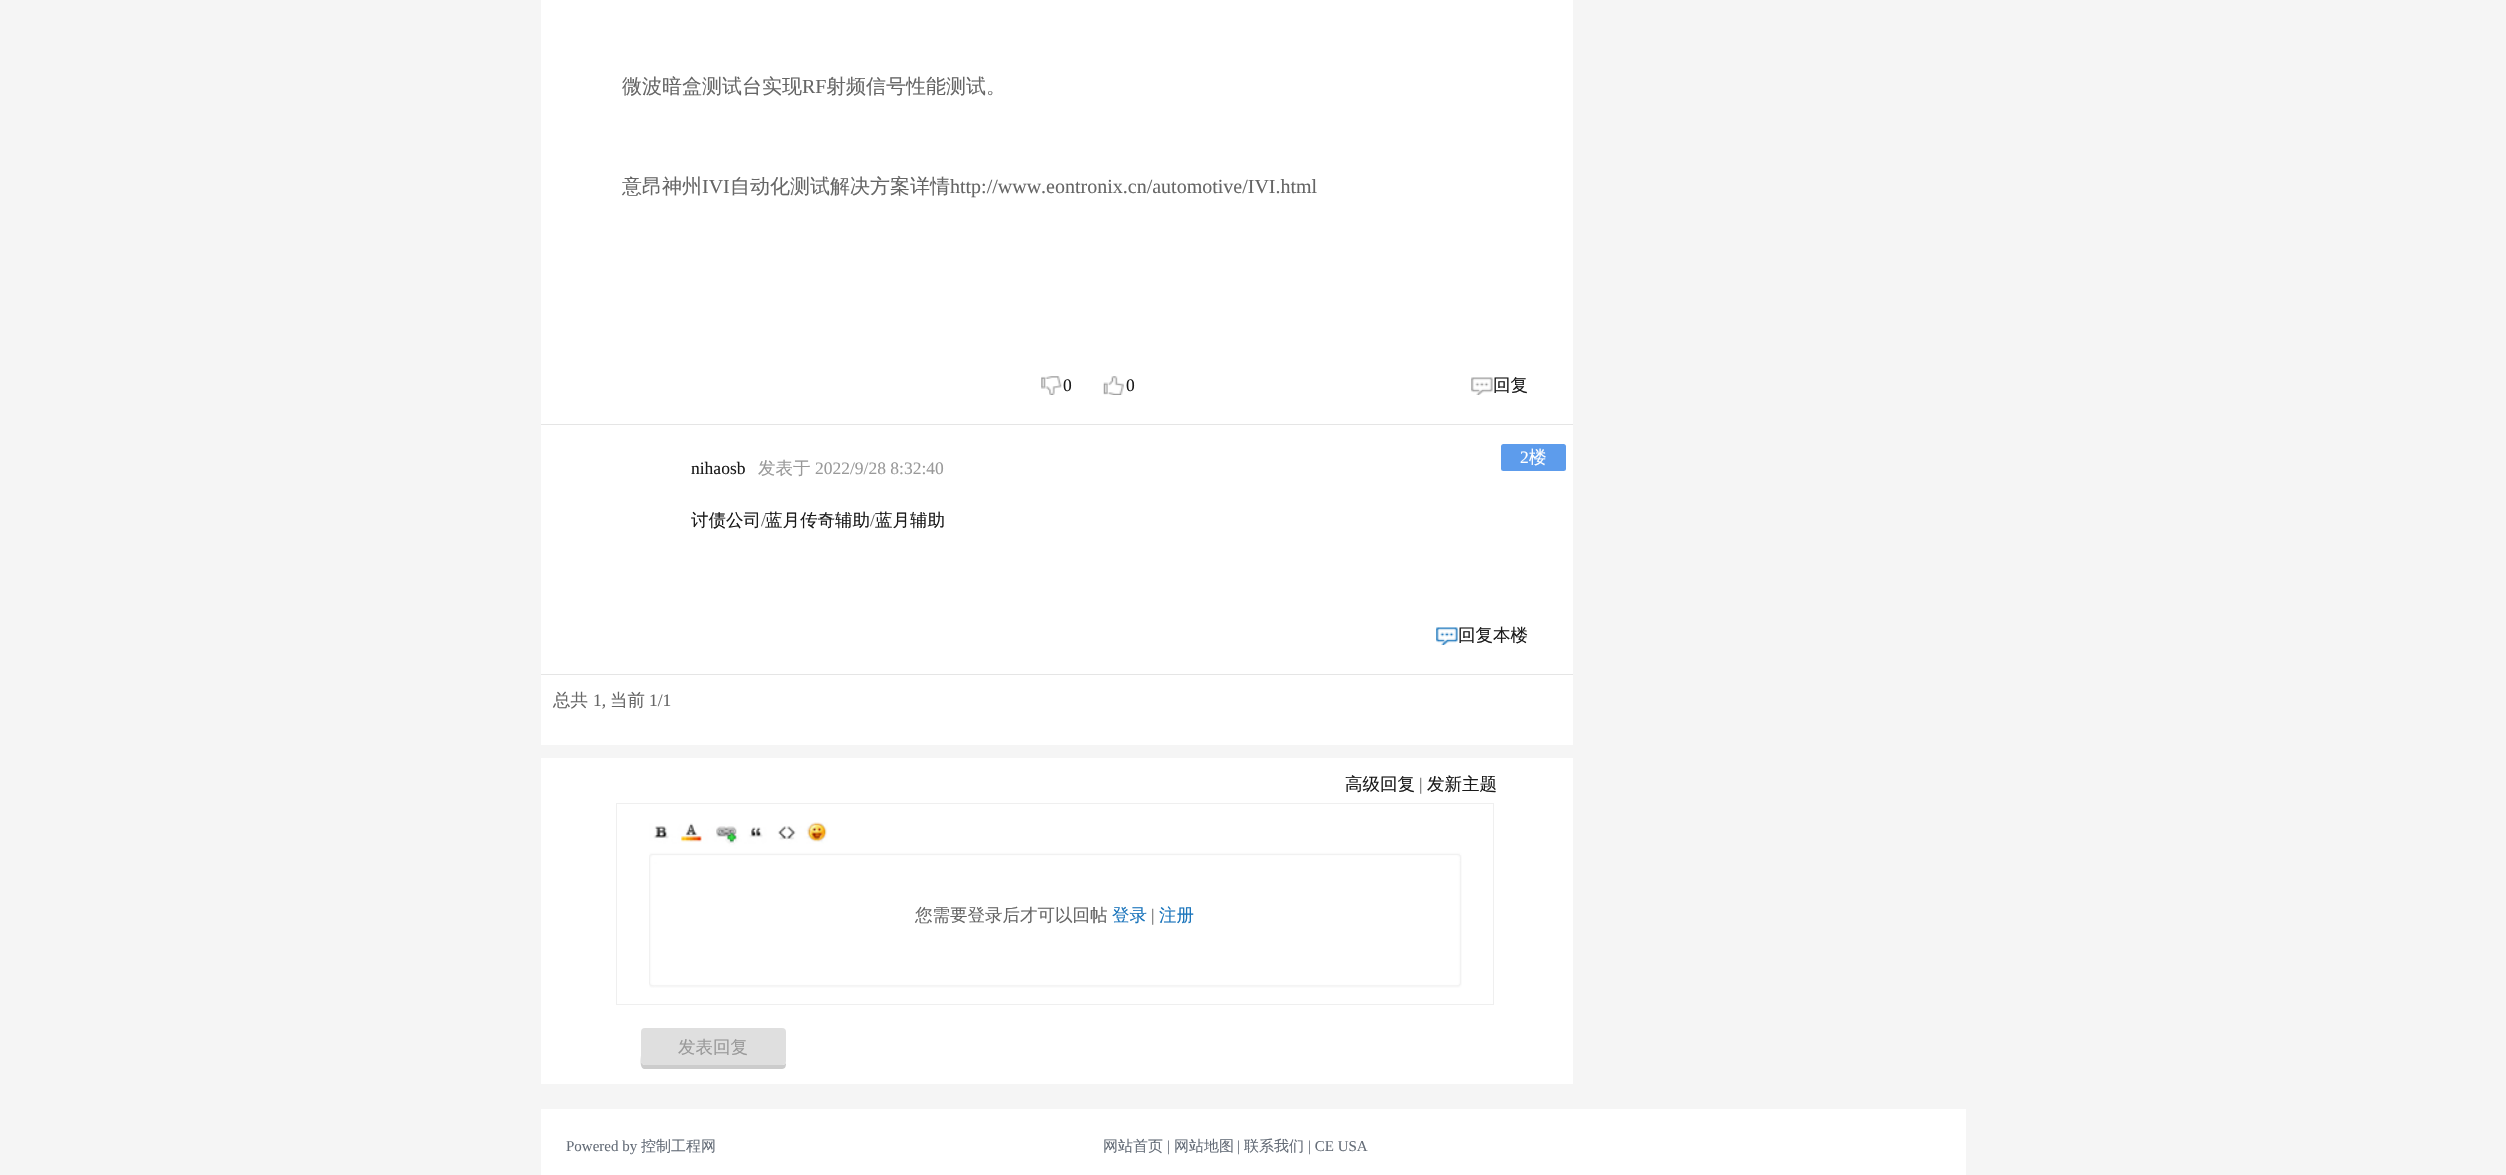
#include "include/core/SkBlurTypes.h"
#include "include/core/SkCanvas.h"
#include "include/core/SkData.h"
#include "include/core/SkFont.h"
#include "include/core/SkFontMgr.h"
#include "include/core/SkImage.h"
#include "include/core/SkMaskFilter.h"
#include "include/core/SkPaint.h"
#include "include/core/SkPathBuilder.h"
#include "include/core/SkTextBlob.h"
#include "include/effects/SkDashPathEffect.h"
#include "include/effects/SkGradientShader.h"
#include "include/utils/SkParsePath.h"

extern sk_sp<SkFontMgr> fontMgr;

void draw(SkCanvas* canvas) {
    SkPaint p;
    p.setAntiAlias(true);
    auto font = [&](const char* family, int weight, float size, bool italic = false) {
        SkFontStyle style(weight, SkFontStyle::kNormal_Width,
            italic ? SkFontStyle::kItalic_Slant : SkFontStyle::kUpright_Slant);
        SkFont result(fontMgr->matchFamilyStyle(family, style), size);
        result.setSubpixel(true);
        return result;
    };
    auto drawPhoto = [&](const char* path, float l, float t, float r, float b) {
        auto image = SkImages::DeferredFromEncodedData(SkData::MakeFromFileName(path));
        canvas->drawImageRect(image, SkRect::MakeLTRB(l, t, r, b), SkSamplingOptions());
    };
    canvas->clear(0xFFF5F5F5);
    p.setColor(0xFFFFFFFF);
    canvas->drawRect(SkRect::MakeLTRB(541, 0, 1573, 745), p);
    p.setColor(0xFFE5E5E5);
    canvas->drawRect(SkRect::MakeLTRB(541, 424, 1573, 425), p);
    auto font1 = font("WenQuanYi Zen Hei", 500, 20);
    p.setColor(0xFF666666);
    canvas->drawString("微波暗盒测试台实现", 622, 93, font1, p);
    auto font2 = font("Liberation Serif", 400, 20);
    canvas->drawString("RF", 802, 93, font2, p);
    canvas->drawString("射频信号性能测试。", 826, 93, font1, p);
    canvas->drawString("意昂神州", 622, 193, font1, p);
    canvas->drawString("IVI", 702, 193, font2, p);
    canvas->drawString("自动化测试解决方案详情", 730, 193, font1, p);
    canvas->drawString("http://www.eontronix.cn/automotive/IVI.html", 950, 193, font2, p);
    drawPhoto("media/1.png", 1041, 376, 1062, 395);
    auto font3 = font("Liberation Serif", 400, 17.5f);
    p.setColor(0xFF1A1A1A);
    canvas->drawString("0", 1063, 391, font3, p);
    drawPhoto("media/2.png", 1103, 376, 1124, 395);
    canvas->drawString("0", 1126, 391, font3, p);
    drawPhoto("media/3.png", 1471, 377, 1493, 395);
    auto font4 = font("WenQuanYi Zen Hei", 500, 17.5f);
    canvas->drawString("回复", 1493, 391, font4, p);
    p.setColor(0xFFE5E5E5);
    canvas->drawRect(SkRect::MakeLTRB(541, 674, 1573, 675), p);
    p.setColor(0xFF5D9CEC);
    canvas->drawRoundRect(SkRect::MakeLTRB(1501, 444, 1566, 471), 2.5f, 2.5f, p);
    p.setColor(0xFFFFFFFF);
    canvas->drawString("2", 1520, 463, font3, p);
    canvas->drawString("楼", 1529, 463, font4, p);
    p.setColor(0xFF1A1A1A);
    canvas->drawString("nihaosb", 691, 474, font3, p);
    p.setColor(0xFF999999);
    canvas->drawString("发表于", 758, 474, font4, p);
    canvas->drawString("2022/9/28 8:32:40", 815, 474, font3, p);
    p.setColor(0xFF1A1A1A);
    canvas->drawString("讨债公司", 691, 526, font4, p);
    p.setColor(0xFF666666);
    canvas->drawString("/", 761, 526, font3, p);
    p.setColor(0xFF1A1A1A);
    canvas->drawString("蓝月传奇辅助", 765, 526, font4, p);
    p.setColor(0xFF666666);
    canvas->drawString("/", 870, 526, font3, p);
    p.setColor(0xFF1A1A1A);
    canvas->drawString("蓝月辅助", 875, 526, font4, p);
    drawPhoto("media/4.png", 1436, 627, 1458, 645);
    canvas->drawString("回复本楼", 1458, 641, font4, p);
    p.setColor(0xFF666666);
    canvas->drawString("总共", 553, 706, font4, p);
    canvas->drawString("1,", 593, 706, font3, p);
    canvas->drawString("当前", 610, 706, font4, p);
    canvas->drawString("1/1", 649, 706, font3, p);
    p.setColor(0xFFFFFFFF);
    canvas->drawRect(SkRect::MakeLTRB(541, 758, 1573, 1084), p);
    p.setColor(0xFF1A1A1A);
    canvas->drawString("高级回复", 1345, 790, font4, p);
    p.setColor(0xFF666666);
    canvas->drawString("|", 1419, 790, font3, p);
    p.setColor(0xFF1A1A1A);
    canvas->drawString("发新主题", 1427, 790, font4, p);
    drawPhoto("media/5.png", 649, 822, 1462, 988);
    p.setStyle(SkPaint::kStroke_Style);
    p.setStrokeWidth(1);
    p.setColor(0xFFEFEFEF);
    canvas->drawRect(SkRect::MakeLTRB(616.5f, 803.5f, 1493.5f, 1004.5f), p);
    p.setStyle(SkPaint::kFill_Style);
    p.setColor(0xFF666666);
    canvas->drawString("您需要登录后才可以回帖", 915, 921, font4, p);
    p.setColor(0xFF1B75BC);
    canvas->drawString("登录", 1112, 921, font4, p);
    p.setColor(0xFF666666);
    canvas->drawString("|", 1151, 921, font3, p);
    p.setColor(0xFF1B75BC);
    canvas->drawString("注册", 1159, 921, font4, p);
    p.setColor(0xFFCCCCCC);
    canvas->drawPath(SkPathBuilder().moveTo(641, 1034).lineTo(641, 1055).cubicTo(641, 1058, 639, 1069, 645, 1069).lineTo(782, 1069).cubicTo(786, 1069, 786, 1065, 786, 1063).cubicTo(785, 1064, 784, 1065, 782, 1065).lineTo(645, 1065).cubicTo(643, 1065, 641, 1063, 641, 1061).close().detach(), p);
    p.setColor(0xFFDFDFDF);
    canvas->drawRoundRect(SkRect::MakeLTRB(641, 1028, 786, 1065), 4, 4, p);
    p.setColor(0xFF999999);
    canvas->drawString("发表回复", 678, 1053, font4, p);
    p.setColor(0xFFFFFFFF);
    canvas->drawRect(SkRect::MakeLTRB(541, 1109, 1966, 1175), p);
    auto font5 = font("Liberation Serif", 400, 15);
    p.setColor(0xFF656D78);
    canvas->drawString("Powered by", 566, 1151, font5, p);
    auto font6 = font("WenQuanYi Zen Hei", 500, 15);
    canvas->drawString("控制工程网", 641, 1151, font6, p);
    canvas->drawString("网站首页", 1103, 1151, font6, p);
    canvas->drawString("|", 1167, 1151, font5, p);
    canvas->drawString("网站地图", 1174, 1151, font6, p);
    canvas->drawString("|", 1237, 1151, font5, p);
    canvas->drawString("联系我们", 1244, 1151, font6, p);
    canvas->drawString("| CE USA", 1308, 1151, font5, p);
}
